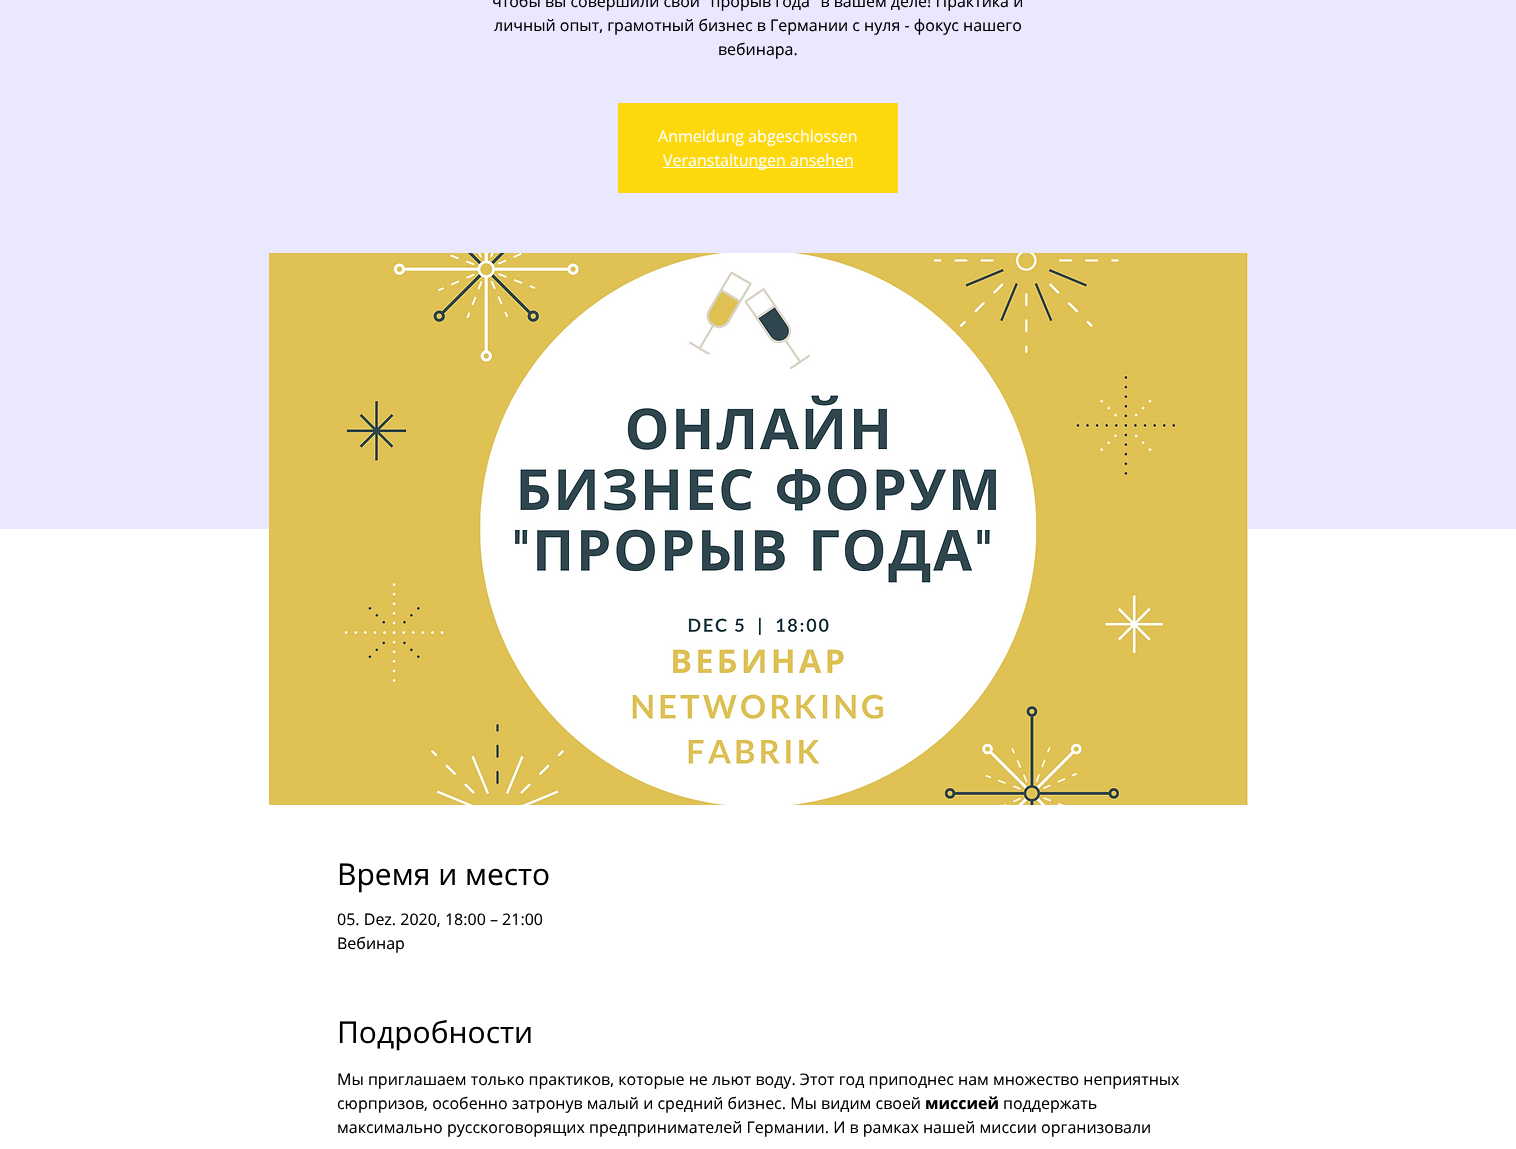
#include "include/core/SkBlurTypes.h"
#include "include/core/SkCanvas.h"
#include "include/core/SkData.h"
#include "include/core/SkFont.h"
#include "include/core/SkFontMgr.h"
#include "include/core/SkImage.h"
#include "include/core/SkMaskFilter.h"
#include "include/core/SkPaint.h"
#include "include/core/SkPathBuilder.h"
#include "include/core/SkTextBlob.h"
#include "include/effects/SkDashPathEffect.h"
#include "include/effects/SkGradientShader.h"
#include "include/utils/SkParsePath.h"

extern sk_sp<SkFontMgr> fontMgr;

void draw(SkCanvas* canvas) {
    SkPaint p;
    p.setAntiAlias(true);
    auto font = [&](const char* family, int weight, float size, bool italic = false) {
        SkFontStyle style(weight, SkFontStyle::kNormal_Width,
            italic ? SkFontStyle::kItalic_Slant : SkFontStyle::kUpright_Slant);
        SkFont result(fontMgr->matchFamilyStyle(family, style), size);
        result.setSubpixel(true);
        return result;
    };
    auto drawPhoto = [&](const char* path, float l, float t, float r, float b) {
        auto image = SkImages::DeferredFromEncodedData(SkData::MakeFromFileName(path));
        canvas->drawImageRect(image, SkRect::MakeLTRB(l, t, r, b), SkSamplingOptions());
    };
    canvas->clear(0xFFFFFFFF);
    p.setColor(0xFFE9E8FF);
    canvas->drawRect(SkRect::MakeLTRB(0, 0, 1516, 529), p);
    auto font1 = font("Open Sans", 400, 16);
    p.setColor(0xFF000000);
    {
        const struct { const char* s; float x, y; } items[] = {
            {"чтобы вы совершили свой \"прорыв года\" в вашем деле! Практика и", 492, 7},
            {"личный опыт, грамотный бизнес в Германии с нуля - фокус нашего", 494, 31},
            {"вебинара.", 718, 55},
        };
        for (auto [s, x, y] : items) {
            canvas->drawString(s, x, y, font1, p);
        }
    }
    p.setColor(0xFFFDD80D);
    canvas->drawRect(SkRect::MakeLTRB(618, 103, 898, 193), p);
    p.setColor(0xFFFFFFFF);
    canvas->drawString("Anmeldung abgeschlossen", 658, 142, font1, p);
    canvas->drawRect(SkRect::MakeLTRB(663, 167, 853, 168), p);
    canvas->drawString("Veranstaltungen ansehen", 663, 166, font1, p);
    drawPhoto("media/1.png", 269, 253, 1248, 805);
    auto font2 = font("Open Sans", 400, 30);
    p.setColor(0xFF000000);
    canvas->drawString("Время и место", 337, 885, font2, p);
    canvas->drawString("05. Dez. 2020, 18:00 – 21:00", 337, 925, font1, p);
    canvas->drawString("Вебинар", 337, 949, font1, p);
    canvas->drawString("Подробности", 337, 1043, font2, p);
    canvas->drawString("Мы приглашаем только практиков, которые не льют воду. Этот год приподнес нам множество неприятных", 337, 1085, font1, p);
    canvas->drawString("сюрпризов, особенно затронув малый и средний бизнес. Мы видим своей", 337, 1109, font1, p);
    auto font3 = font("Open Sans", 700, 16);
    canvas->drawString("миссией", 925, 1109, font3, p);
    canvas->drawString("поддержать", 1003, 1109, font1, p);
    canvas->drawString("максимально русскоговорящих предпринимателей Германии. И в рамках нашей миссии организовали", 337, 1133, font1, p);
}
